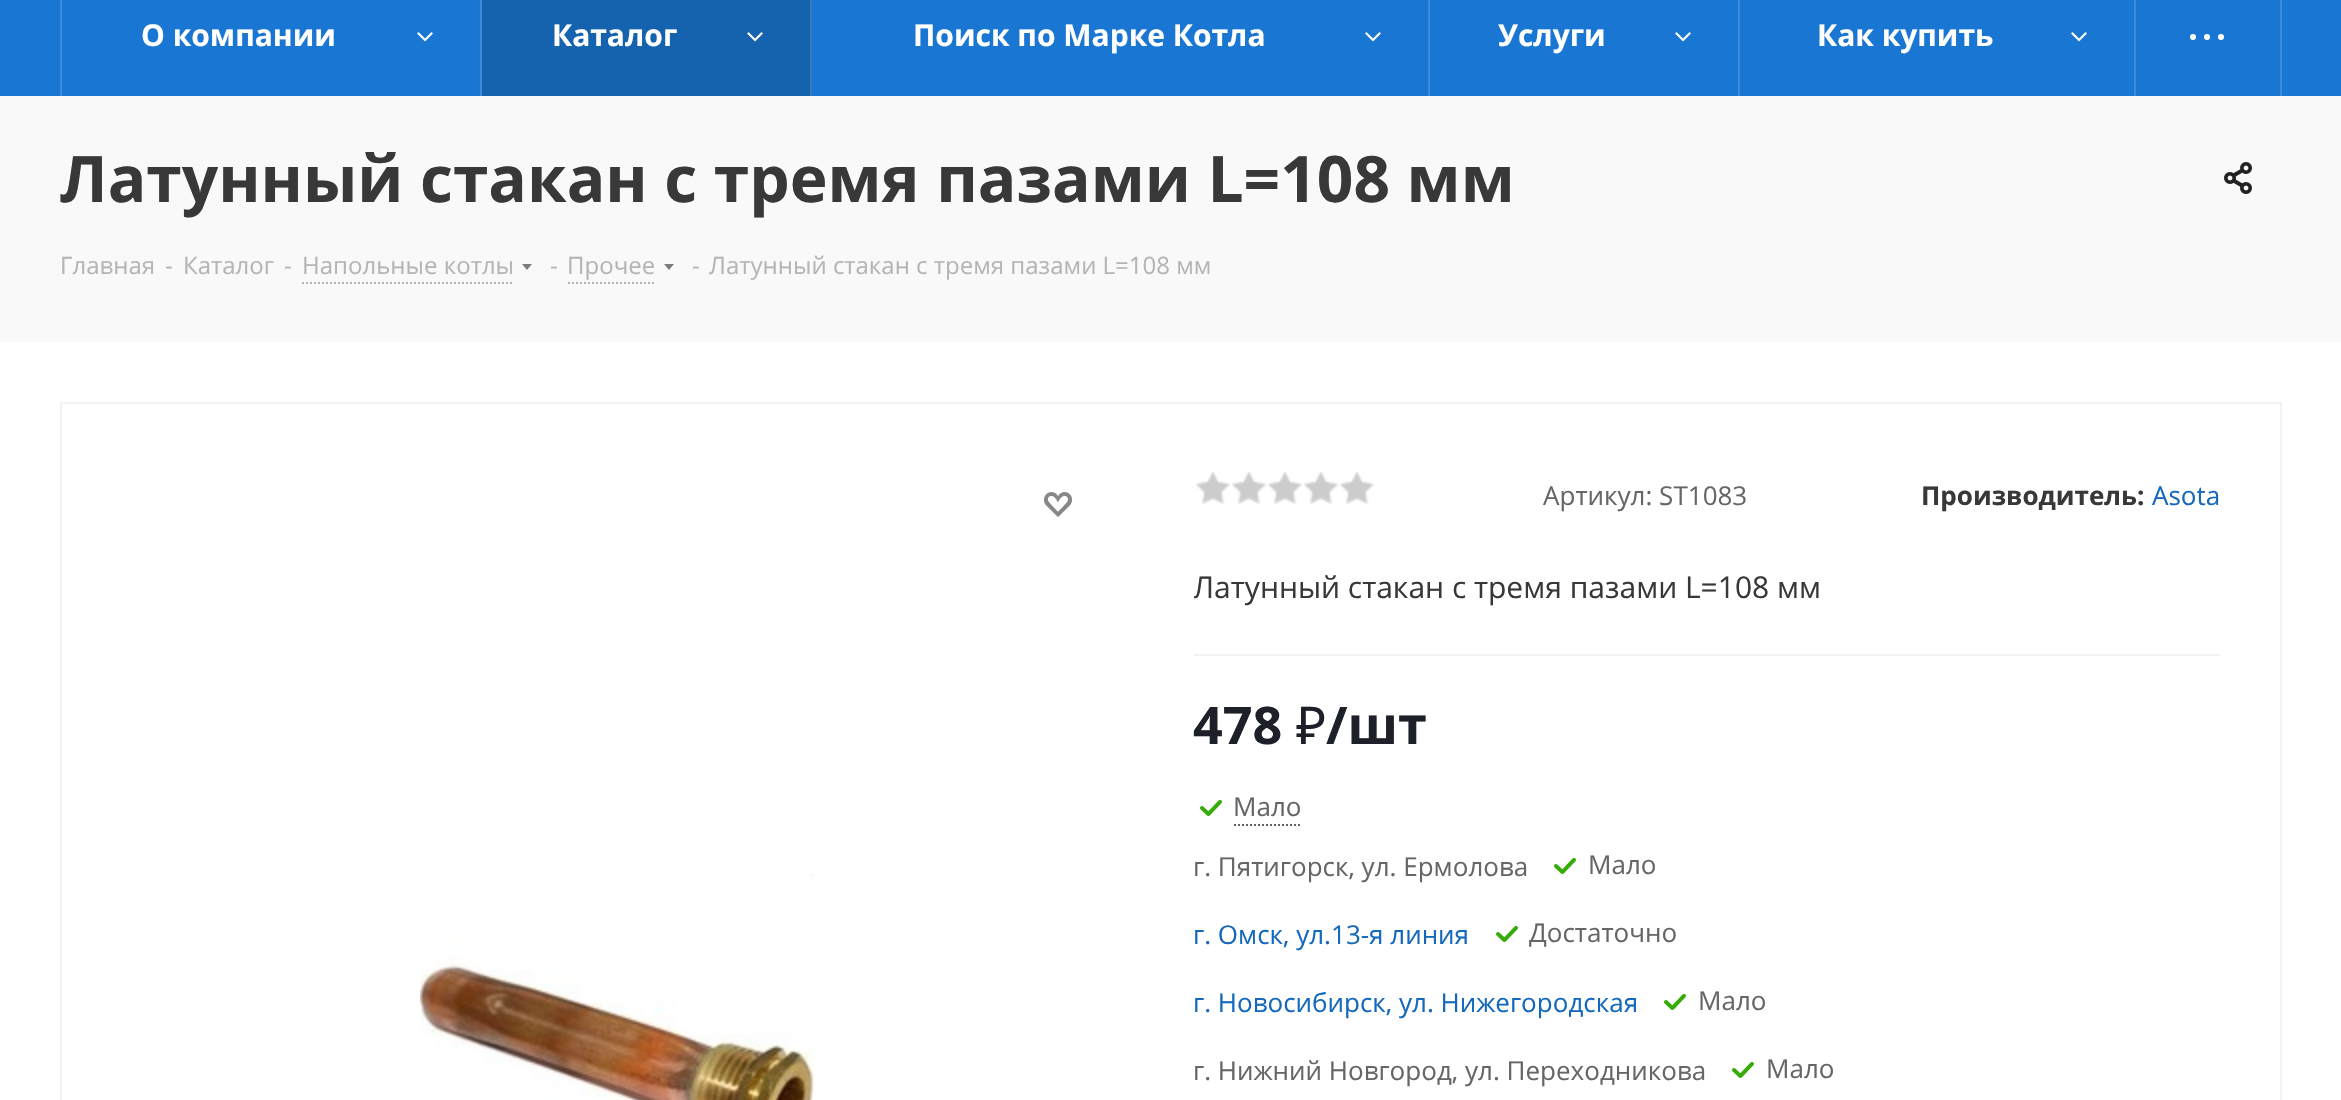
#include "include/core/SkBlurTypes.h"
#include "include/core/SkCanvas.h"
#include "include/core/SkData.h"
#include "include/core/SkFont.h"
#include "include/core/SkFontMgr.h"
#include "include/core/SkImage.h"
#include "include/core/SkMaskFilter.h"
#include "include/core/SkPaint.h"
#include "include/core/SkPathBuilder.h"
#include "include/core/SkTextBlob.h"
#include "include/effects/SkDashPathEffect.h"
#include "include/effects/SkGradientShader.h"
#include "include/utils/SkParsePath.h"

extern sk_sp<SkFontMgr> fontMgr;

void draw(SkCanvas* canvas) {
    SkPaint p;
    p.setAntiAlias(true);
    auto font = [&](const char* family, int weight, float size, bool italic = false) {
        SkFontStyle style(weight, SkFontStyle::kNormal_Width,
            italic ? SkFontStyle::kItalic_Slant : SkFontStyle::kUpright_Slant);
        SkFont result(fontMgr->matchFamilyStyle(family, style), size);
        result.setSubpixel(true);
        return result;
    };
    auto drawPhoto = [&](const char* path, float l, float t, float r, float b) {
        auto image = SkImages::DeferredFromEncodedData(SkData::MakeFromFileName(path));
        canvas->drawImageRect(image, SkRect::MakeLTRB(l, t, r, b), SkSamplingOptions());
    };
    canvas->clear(0xFFFFFFFF);
    {
        const struct { float l, t, r, b; SkColor color; } items[] = {
            {0, 0, 2341, 96, 0xFF1976D2},
            {60, 0, 62, 96, 0xFF3C8BD9},
            {480, 0, 482, 96, 0xFF3C8BD9},
        };
        for (auto [l, t, r, b, color] : items) {
            p.setColor(color);
            canvas->drawRect(SkRect::MakeLTRB(l, t, r, b), p);
        }
    }
    auto font1 = font("Open Sans", 700, 30);
    p.setColor(0xFFFFFFFF);
    canvas->drawString("О компании", 141, 46, font1, p);
    drawPhoto("media/1.png", 417, 32, 433, 42);
    p.setColor(0xFF1562AE);
    canvas->drawRect(SkRect::MakeLTRB(482, 0, 810, 96), p);
    p.setColor(0xFF387ABA);
    canvas->drawRect(SkRect::MakeLTRB(810, 0, 812, 96), p);
    p.setColor(0xFFFFFFFF);
    canvas->drawString("Каталог", 552, 46, font1, p);
    drawPhoto("media/2.png", 747, 32, 763, 42);
    p.setColor(0xFF3C8BD9);
    canvas->drawRect(SkRect::MakeLTRB(1428, 0, 1430, 96), p);
    p.setColor(0xFFFFFFFF);
    canvas->drawString("Поиск по Марке Котла", 913, 46, font1, p);
    drawPhoto("media/1.png", 1365, 32, 1381, 42);
    p.setColor(0xFF3C8BD9);
    canvas->drawRect(SkRect::MakeLTRB(1738, 0, 1740, 96), p);
    p.setColor(0xFFFFFFFF);
    canvas->drawString("Услуги", 1498, 46, font1, p);
    drawPhoto("media/1.png", 1675, 32, 1691, 42);
    p.setColor(0xFF3C8BD9);
    canvas->drawRect(SkRect::MakeLTRB(2134, 0, 2136, 96), p);
    p.setColor(0xFFFFFFFF);
    canvas->drawString("Как купить", 1817, 46, font1, p);
    drawPhoto("media/1.png", 2071, 32, 2087, 42);
    p.setColor(0xFF3C8BD9);
    canvas->drawRect(SkRect::MakeLTRB(2280, 0, 2282, 96), p);
    drawPhoto("media/3.png", 2190, 34, 2224, 40);
    p.setColor(0xFFF9F9F9);
    canvas->drawRect(SkRect::MakeLTRB(0, 96, 2341, 342), p);
    auto font2 = font("Open Sans", 700, 64);
    p.setColor(0xFF383838);
    canvas->drawString("Латунный стакан с тремя пазами L=108 мм", 60, 202, font2, p);
    drawPhoto("media/4.png", 2224, 162, 2252, 194);
    auto font3 = font("Open Sans", 400, 24);
    p.setColor(0xFFB6B5B5);
    {
        const struct { const char* s; float x, y; } items[] = {
            {"Главная", 60, 274},
            {"-", 165, 274},
            {"Каталог", 183, 274},
            {"-", 284, 274},
            {"Напольные котлы", 302, 274},
        };
        for (auto [s, x, y] : items) {
            canvas->drawString(s, x, y, font3, p);
        }
    }
    p.setStyle(SkPaint::kStroke_Style);
    p.setStrokeWidth(2);
    p.setColor(0xFFB4B4B4);
    p.setPathEffect(SkDashPathEffect::Make({{2, 2}}, 0));
    canvas->drawPath(SkPathBuilder().moveTo(302, 283).lineTo(514, 283).detach(), p);
    p.setPathEffect(nullptr);
    drawPhoto("media/5.png", 522, 264, 532, 270);
    p.setStyle(SkPaint::kFill_Style);
    p.setColor(0xFFB6B5B5);
    canvas->drawString("-", 550, 274, font3, p);
    canvas->drawString("Прочее", 567, 274, font3, p);
    p.setStyle(SkPaint::kStroke_Style);
    p.setColor(0xFFB4B4B4);
    p.setPathEffect(SkDashPathEffect::Make({{2, 2}}, 0));
    canvas->drawPath(SkPathBuilder().moveTo(568, 283).lineTo(656, 283).detach(), p);
    p.setPathEffect(nullptr);
    drawPhoto("media/5.png", 664, 264, 674, 270);
    p.setStyle(SkPaint::kFill_Style);
    p.setColor(0xFFB6B5B5);
    canvas->drawString("-", 692, 274, font3, p);
    canvas->drawString("Латунный стакан с тремя пазами L=108 мм", 709, 274, font3, p);
    p.setStyle(SkPaint::kStroke_Style);
    p.setColor(0xFFF2F2F2);
    canvas->drawRect(SkRect::MakeLTRB(61, 403, 2281, 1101), p);
    drawPhoto("media/6.png", 1043, 492, 1073, 517);
    drawPhoto("media/7.png", 420, 874, 814, 1100);
    p.setStyle(SkPaint::kFill_Style);
    canvas->drawRect(SkRect::MakeLTRB(1194, 654, 2220, 656), p);
    drawPhoto("media/8.png", 1195, 471, 1230, 505);
    drawPhoto("media/8.png", 1231, 471, 1266, 505);
    drawPhoto("media/8.png", 1267, 471, 1302, 505);
    drawPhoto("media/8.png", 1303, 471, 1338, 505);
    drawPhoto("media/8.png", 1339, 471, 1374, 505);
    auto font4 = font("Open Sans", 400, 26);
    p.setColor(0xFF666666);
    canvas->drawString("Артикул: ST1083", 1543, 505, font4, p);
    auto font5 = font("Open Sans", 700, 26);
    p.setColor(0xFF383838);
    canvas->drawString("Производитель:", 1921, 505, font5, p);
    p.setColor(0xFF1569BC);
    canvas->drawString("Asota", 2152, 505, font4, p);
    canvas->save();
    canvas->clipRect(SkRect::MakeLTRB(1194, 536, 2220, 616));
    auto font6 = font("Open Sans", 400, 30);
    p.setColor(0xFF383838);
    canvas->drawString("Латунный стакан с тремя пазами L=108 мм", 1193, 598, font6, p);
    canvas->restore();
    auto font7 = font("Open Sans", 700, 52);
    p.setColor(0xFF1D2029);
    canvas->drawString("478", 1193, 744, font7, p);
    auto font8 = font("Noto Sans", 400, 52);
    canvas->drawString("₽", 1296, 744, font8, p);
    canvas->drawString("/шт", 1326, 744, font7, p);
    drawPhoto("media/9.png", 1200, 799, 1222, 816);
    p.setColor(0xFF666666);
    canvas->drawString("Мало", 1233, 816, font4, p);
    p.setStyle(SkPaint::kStroke_Style);
    p.setPathEffect(SkDashPathEffect::Make({{2, 2}}, 0));
    canvas->drawPath(SkPathBuilder().moveTo(1234, 825).lineTo(1302, 825).detach(), p);
    p.setPathEffect(nullptr);
    p.setStyle(SkPaint::kFill_Style);
    canvas->drawString("г. Пятигорск, ул. Ермолова", 1193, 876, font4, p);
    drawPhoto("media/9.png", 1554, 857, 1576, 874);
    canvas->drawString("Мало", 1588, 874, font4, p);
    p.setColor(0xFF1569BC);
    canvas->drawString("г. Омск, ул.13-я линия", 1193, 944, font4, p);
    drawPhoto("media/9.png", 1496, 925, 1518, 942);
    p.setColor(0xFF666666);
    canvas->drawString("Достаточно", 1529, 942, font4, p);
    p.setColor(0xFF1569BC);
    canvas->drawString("г. Новосибирск, ул. Нижегородская", 1193, 1012, font4, p);
    drawPhoto("media/9.png", 1664, 993, 1686, 1010);
    p.setColor(0xFF666666);
    canvas->drawString("Мало", 1698, 1010, font4, p);
    canvas->drawString("г. Нижний Новгород, ул. Переходникова", 1193, 1080, font4, p);
    drawPhoto("media/9.png", 1732, 1061, 1754, 1078);
    canvas->drawString("Мало", 1766, 1078, font4, p);
}
